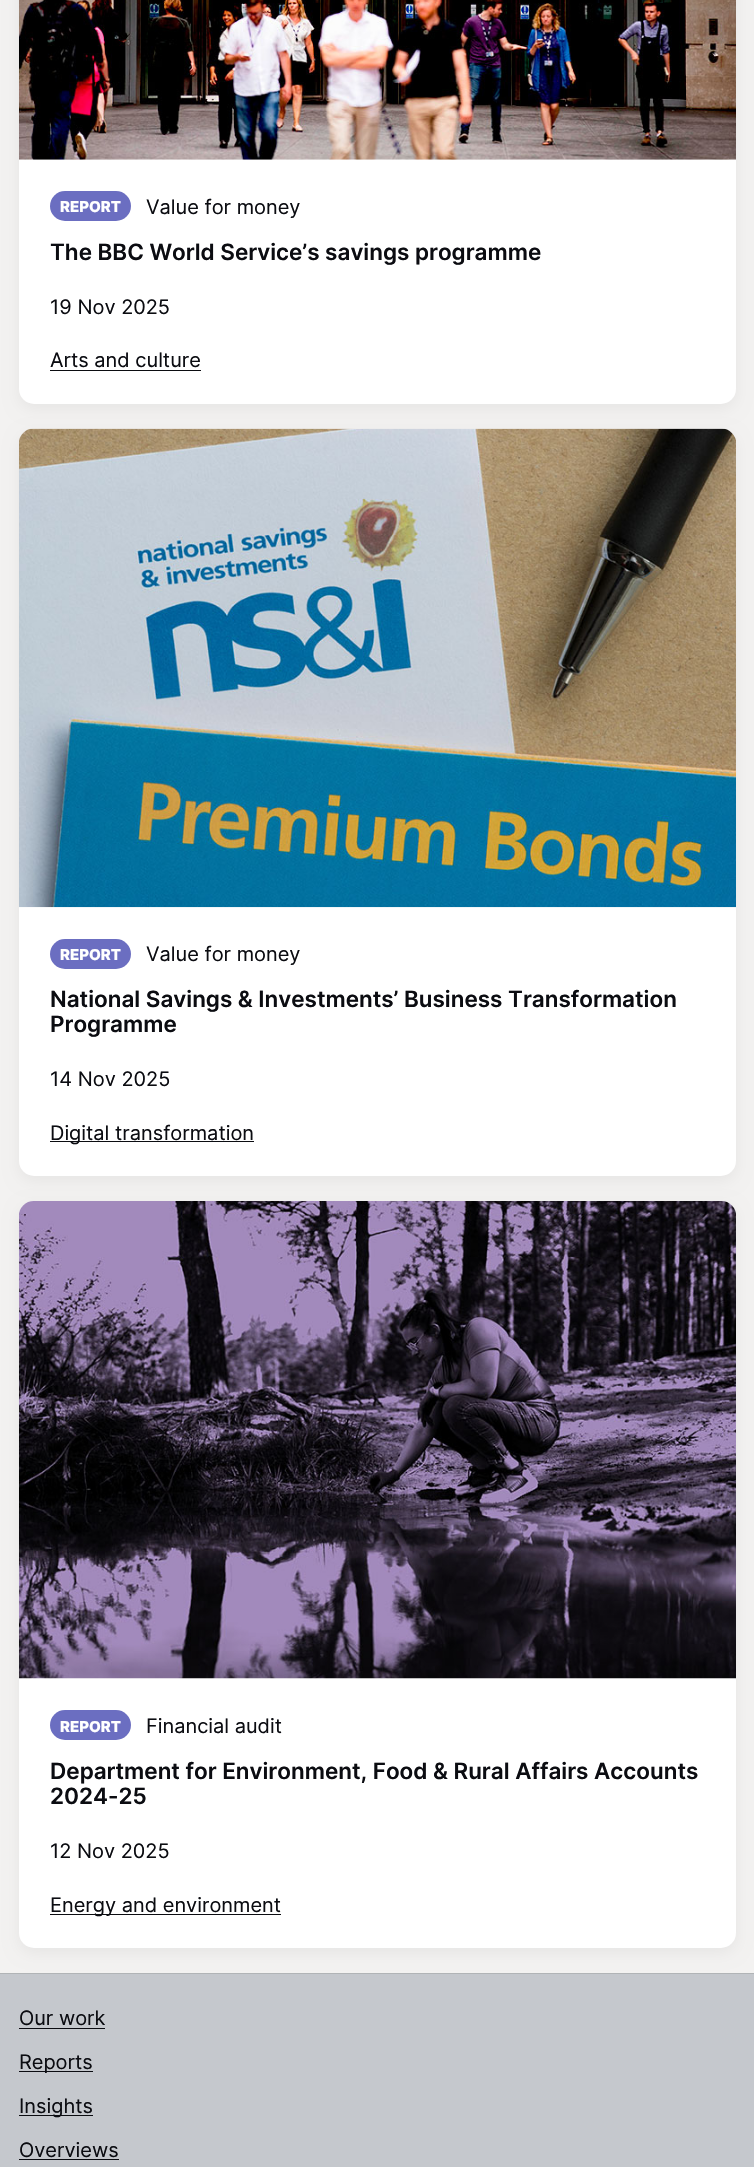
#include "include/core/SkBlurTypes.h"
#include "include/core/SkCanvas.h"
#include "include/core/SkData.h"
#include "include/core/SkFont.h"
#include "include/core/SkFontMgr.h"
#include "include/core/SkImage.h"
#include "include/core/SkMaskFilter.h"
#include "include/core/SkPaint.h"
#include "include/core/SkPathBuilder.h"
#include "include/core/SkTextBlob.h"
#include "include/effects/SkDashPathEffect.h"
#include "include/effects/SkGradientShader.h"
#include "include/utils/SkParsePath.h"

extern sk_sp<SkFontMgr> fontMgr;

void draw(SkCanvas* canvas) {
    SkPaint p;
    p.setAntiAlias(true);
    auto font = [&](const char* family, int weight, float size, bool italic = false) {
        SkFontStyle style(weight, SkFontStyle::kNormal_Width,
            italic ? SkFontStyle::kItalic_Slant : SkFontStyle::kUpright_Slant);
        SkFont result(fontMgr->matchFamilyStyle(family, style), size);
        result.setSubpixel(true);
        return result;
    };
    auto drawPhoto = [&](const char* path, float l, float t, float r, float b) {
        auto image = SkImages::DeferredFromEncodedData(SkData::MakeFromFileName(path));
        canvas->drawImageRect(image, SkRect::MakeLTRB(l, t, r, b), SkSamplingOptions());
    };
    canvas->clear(0xFFF3F2F1);
    p.setColor(0x0D000000);
    p.setMaskFilter(SkMaskFilter::MakeBlur(kNormal_SkBlurStyle, 7.5f));
    canvas->drawRoundRect(SkRect::MakeLTRB(19, -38, 736, 409), 15, 15, p);
    p.setMaskFilter(nullptr);
    p.setColor(0xFFFFFFFF);
    canvas->drawRoundRect(SkRect::MakeLTRB(19, -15, 736, 404), 15, 15, p);
    drawPhoto("media/1.png", 19, 0, 736, 160);
    p.setColor(0xFF6B6EC1);
    canvas->drawRoundRect(SkRect::MakeLTRB(50, 191, 131, 221), 15, 15, p);
    auto font1 = font("Inter", 800, 15);
    p.setColor(0xFFFFFFFF);
    canvas->drawString("REPORT", 60, 212, font1, p);
    auto font2 = font("Inter", 400, 20);
    p.setColor(0xFF0B0C11);
    canvas->drawString("Value for money", 146, 214, font2, p);
    auto font3 = font("Inter", 600, 22.5f);
    canvas->drawString("The BBC World Service’s savings programme", 50, 260, font3, p);
    canvas->drawString("19 Nov 2025", 50, 314, font2, p);
    canvas->drawString("Arts and culture", 50, 367, font2, p);
    canvas->drawRect(SkRect::MakeLTRB(50, 370, 201, 371), p);
    p.setColor(0x0D000000);
    p.setMaskFilter(SkMaskFilter::MakeBlur(kNormal_SkBlurStyle, 7.5f));
    canvas->drawRoundRect(SkRect::MakeLTRB(19, 434, 736, 1181), 15, 15, p);
    p.setMaskFilter(nullptr);
    p.setColor(0xFFFFFFFF);
    canvas->drawRoundRect(SkRect::MakeLTRB(19, 429, 736, 1176), 15, 15, p);
    drawPhoto("media/2.png", 19, 428, 736, 908);
    p.setColor(0xFF6B6EC1);
    canvas->drawRoundRect(SkRect::MakeLTRB(50, 939, 131, 969), 15, 15, p);
    p.setColor(0xFFFFFFFF);
    canvas->drawString("REPORT", 60, 960, font1, p);
    p.setColor(0xFF0B0C11);
    canvas->drawString("Value for money", 146, 961, font2, p);
    canvas->drawString("National Savings & Investments’ Business Transformation", 50, 1007, font3, p);
    canvas->drawString("Programme", 50, 1032, font3, p);
    canvas->drawString("14 Nov 2025", 50, 1086, font2, p);
    canvas->drawRect(SkRect::MakeLTRB(50, 1141, 254, 1142), p);
    canvas->drawString("Digital transformation", 50, 1140, font2, p);
    p.setColor(0xFFC5C8CD);
    canvas->drawRect(SkRect::MakeLTRB(0, 1974, 754, 2167), p);
    p.setColor(0xFFB1B4B6);
    canvas->drawRect(SkRect::MakeLTRB(0, 1973, 754, 1974), p);
    p.setColor(0x0D000000);
    p.setMaskFilter(SkMaskFilter::MakeBlur(kNormal_SkBlurStyle, 7.5f));
    canvas->drawRoundRect(SkRect::MakeLTRB(19, 1206, 736, 1953), 15, 15, p);
    p.setMaskFilter(nullptr);
    p.setColor(0xFFFFFFFF);
    canvas->drawRoundRect(SkRect::MakeLTRB(19, 1201, 736, 1948), 15, 15, p);
    drawPhoto("media/3.png", 19, 1201, 736, 1679);
    p.setColor(0xFF6B6EC1);
    canvas->drawRoundRect(SkRect::MakeLTRB(50, 1710, 131, 1740), 15, 15, p);
    p.setColor(0xFFFFFFFF);
    canvas->drawString("REPORT", 60, 1732, font1, p);
    p.setColor(0xFF0B0C11);
    canvas->drawString("Financial audit", 146, 1733, font2, p);
    canvas->drawString("Department for Environment, Food & Rural Affairs Accounts", 50, 1779, font3, p);
    canvas->drawString("2024-25", 50, 1804, font3, p);
    canvas->drawString("12 Nov 2025", 50, 1858, font2, p);
    canvas->drawRect(SkRect::MakeLTRB(50, 1914, 281, 1915), p);
    canvas->drawString("Energy and environment", 50, 1912, font2, p);
    canvas->drawString("Our work", 19, 2025, font2, p);
    canvas->drawRect(SkRect::MakeLTRB(19, 2028, 105, 2029), p);
    canvas->drawRect(SkRect::MakeLTRB(19, 2071, 93, 2072), p);
    canvas->drawString("Reports", 19, 2069, font2, p);
    canvas->drawRect(SkRect::MakeLTRB(19, 2115, 93, 2116), p);
    canvas->drawString("Insights", 19, 2113, font2, p);
    canvas->drawString("Overviews", 19, 2157, font2, p);
    canvas->drawRect(SkRect::MakeLTRB(19, 2159, 119, 2160), p);
}
